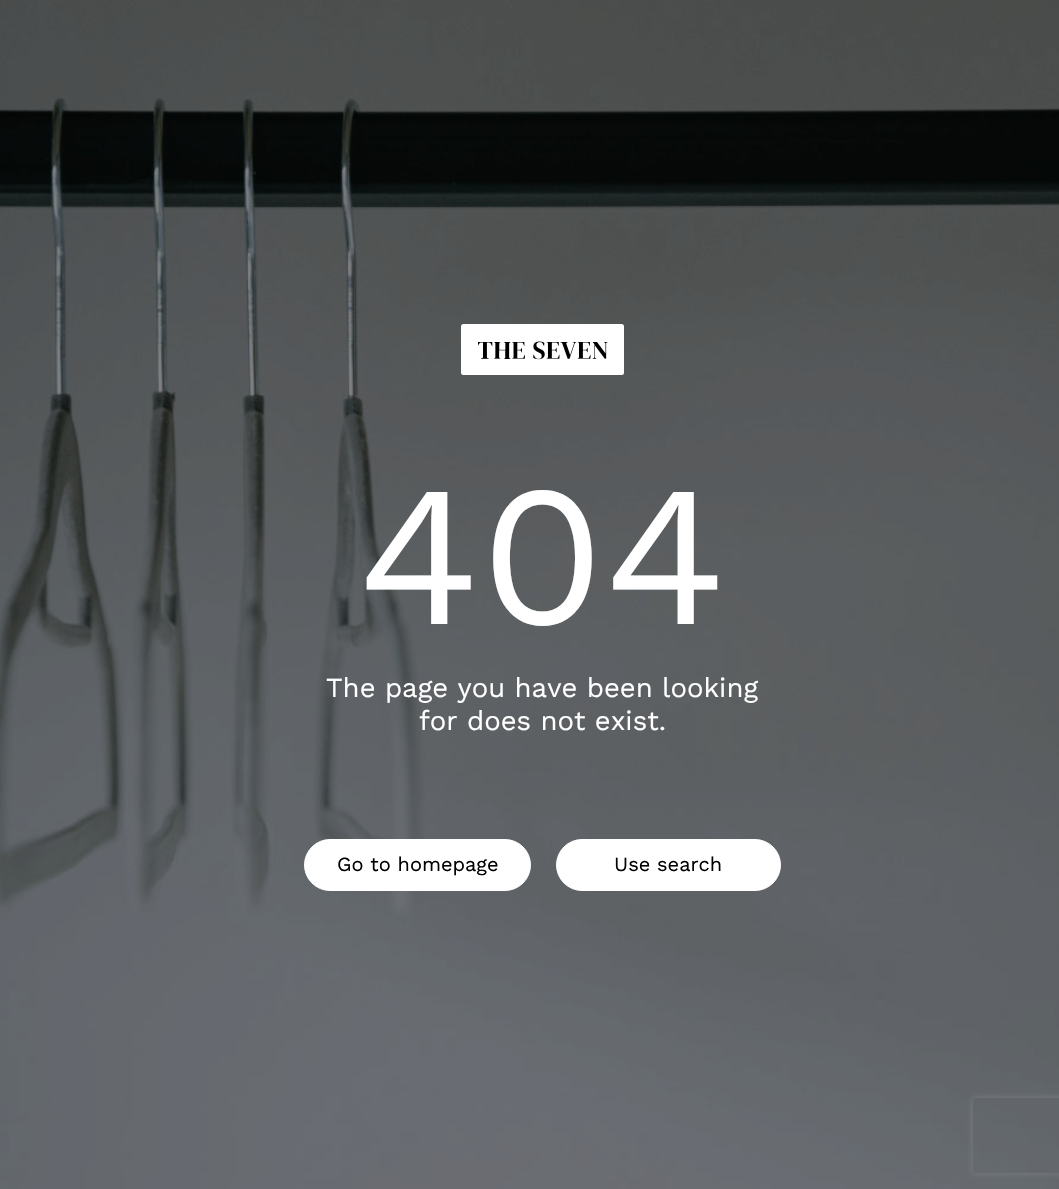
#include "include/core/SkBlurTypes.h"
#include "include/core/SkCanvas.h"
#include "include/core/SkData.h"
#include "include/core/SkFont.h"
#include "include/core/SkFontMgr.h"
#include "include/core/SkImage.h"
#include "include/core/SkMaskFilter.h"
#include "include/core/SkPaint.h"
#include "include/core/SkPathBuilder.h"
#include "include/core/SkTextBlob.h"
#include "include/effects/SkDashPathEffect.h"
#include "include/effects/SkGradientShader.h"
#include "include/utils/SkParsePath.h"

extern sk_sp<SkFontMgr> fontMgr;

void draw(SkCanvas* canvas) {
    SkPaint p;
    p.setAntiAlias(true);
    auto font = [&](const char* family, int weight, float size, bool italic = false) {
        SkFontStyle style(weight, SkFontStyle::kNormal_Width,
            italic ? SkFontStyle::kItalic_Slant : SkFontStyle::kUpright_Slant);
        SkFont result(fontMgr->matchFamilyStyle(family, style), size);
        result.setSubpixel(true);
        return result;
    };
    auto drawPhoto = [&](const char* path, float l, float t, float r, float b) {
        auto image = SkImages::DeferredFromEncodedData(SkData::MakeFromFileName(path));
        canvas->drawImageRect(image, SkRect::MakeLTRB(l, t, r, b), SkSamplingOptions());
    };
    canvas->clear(0xFFFFFFFF);
    drawPhoto("media/1.png", 0, 0, 1059, 1189);
    p.setColor(0xFFFFFFFF);
    canvas->drawRoundRect(SkRect::MakeLTRB(461, 324, 624, 375), 2.5f, 2.5f, p);
    drawPhoto("media/2.png", 478, 341, 608, 360);
    auto font1 = font("Work Sans", 400, 200);
    canvas->drawString("404", 358, 624, font1, p);
    auto font2 = font("Work Sans", 400, 27.5f);
    canvas->drawString("The page you have been looking", 326, 697, font2, p);
    canvas->drawString("for does not exist.", 419, 730, font2, p);
    canvas->drawRoundRect(SkRect::MakeLTRB(304.5f, 839.5f, 530.5f, 890.5f), 25.5f, 25.5f, p);
    p.setStyle(SkPaint::kStroke_Style);
    p.setStrokeWidth(1);
    canvas->drawRoundRect(SkRect::MakeLTRB(304.5f, 839.5f, 530.5f, 890.5f), 25.5f, 25.5f, p);
    auto font3 = font("Work Sans", 400, 20);
    p.setStyle(SkPaint::kFill_Style);
    p.setColor(0xFF000000);
    canvas->drawString("Go to homepage", 337, 871, font3, p);
    p.setColor(0xFFFFFFFF);
    canvas->drawRoundRect(SkRect::MakeLTRB(556.5f, 839.5f, 780.5f, 890.5f), 25.5f, 25.5f, p);
    p.setStyle(SkPaint::kStroke_Style);
    canvas->drawRoundRect(SkRect::MakeLTRB(556.5f, 839.5f, 780.5f, 890.5f), 25.5f, 25.5f, p);
    p.setStyle(SkPaint::kFill_Style);
    p.setColor(0xFF000000);
    canvas->drawString("Use search", 614, 871, font3, p);
    canvas->save();
    canvas->clipPath(SkPathBuilder(SkPathFillType::kEvenOdd).moveTo(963, 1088).lineTo(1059, 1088).lineTo(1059, 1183).lineTo(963, 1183).close().moveTo(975.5f, 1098).lineTo(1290.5f, 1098).cubicTo(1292, 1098, 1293, 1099, 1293, 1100.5f).lineTo(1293, 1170.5f).cubicTo(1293, 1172, 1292, 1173, 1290.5f, 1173).lineTo(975.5f, 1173).cubicTo(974, 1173, 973, 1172, 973, 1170.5f).lineTo(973, 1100.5f).cubicTo(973, 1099, 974, 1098, 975.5f, 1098).close().detach(), true);
    p.setColor(0xFF808080);
    p.setMaskFilter(SkMaskFilter::MakeBlur(kNormal_SkBlurStyle, 3));
    canvas->drawRoundRect(SkRect::MakeLTRB(973, 1098, 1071, 1173), 2.5f, 2.5f, p);
    p.setMaskFilter(nullptr);
    canvas->restore();
}
